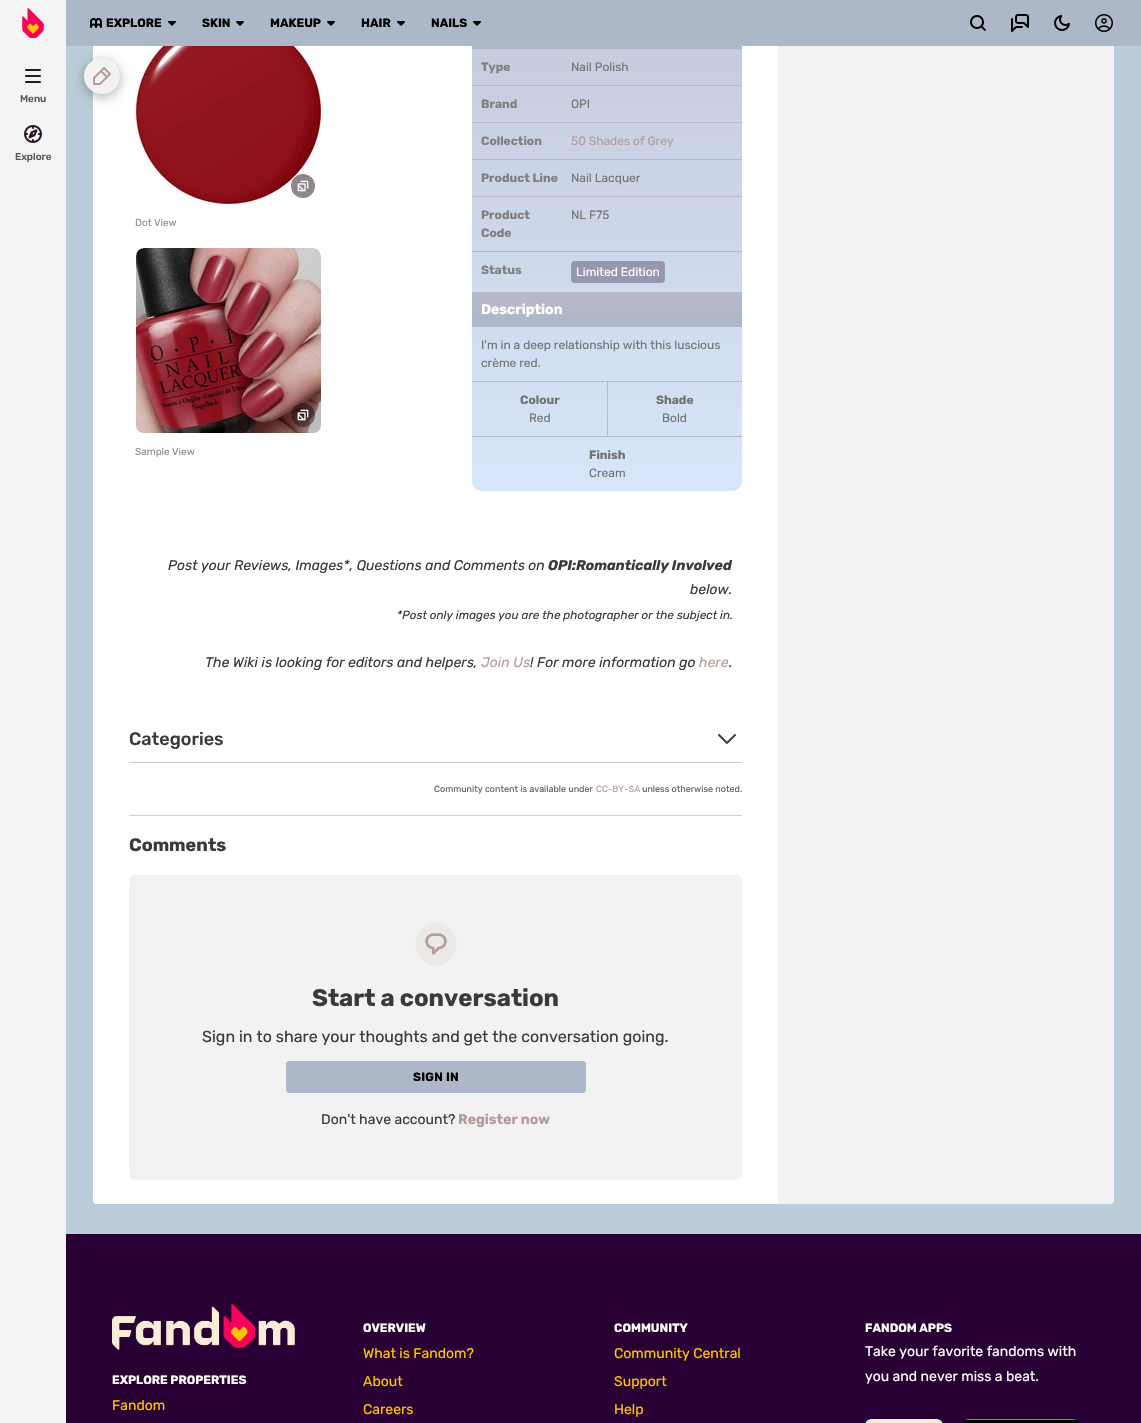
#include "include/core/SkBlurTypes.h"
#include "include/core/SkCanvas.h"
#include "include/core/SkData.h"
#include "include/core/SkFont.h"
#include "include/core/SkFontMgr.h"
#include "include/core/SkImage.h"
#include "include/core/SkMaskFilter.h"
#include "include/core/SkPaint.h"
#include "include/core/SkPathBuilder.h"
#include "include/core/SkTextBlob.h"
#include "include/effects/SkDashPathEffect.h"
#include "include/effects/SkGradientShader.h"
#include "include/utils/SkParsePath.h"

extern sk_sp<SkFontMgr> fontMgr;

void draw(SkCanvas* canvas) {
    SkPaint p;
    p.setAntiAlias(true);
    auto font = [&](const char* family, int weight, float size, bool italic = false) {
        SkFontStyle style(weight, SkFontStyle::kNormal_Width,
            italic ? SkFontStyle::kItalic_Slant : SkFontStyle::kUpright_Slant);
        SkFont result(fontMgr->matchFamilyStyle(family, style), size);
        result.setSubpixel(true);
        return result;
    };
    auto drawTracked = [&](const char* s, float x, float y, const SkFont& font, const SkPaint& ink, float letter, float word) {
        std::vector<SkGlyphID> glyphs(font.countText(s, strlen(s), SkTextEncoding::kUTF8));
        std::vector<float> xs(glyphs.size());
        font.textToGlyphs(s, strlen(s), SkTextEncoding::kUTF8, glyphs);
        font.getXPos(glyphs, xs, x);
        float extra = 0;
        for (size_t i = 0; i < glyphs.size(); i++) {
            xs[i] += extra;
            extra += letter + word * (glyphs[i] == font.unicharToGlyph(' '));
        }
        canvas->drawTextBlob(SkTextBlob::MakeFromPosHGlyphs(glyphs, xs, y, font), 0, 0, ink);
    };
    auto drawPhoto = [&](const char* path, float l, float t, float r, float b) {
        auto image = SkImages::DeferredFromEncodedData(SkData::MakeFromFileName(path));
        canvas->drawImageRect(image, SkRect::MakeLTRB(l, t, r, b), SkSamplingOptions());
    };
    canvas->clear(0xFFBACDD8);
    p.setColor(0xFFFFFFFF);
    canvas->drawPath(SkPathBuilder().moveTo(96, -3).lineTo(778, -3).lineTo(778, 1204).lineTo(96, 1204).cubicTo(94.5f, 1204, 93, 1202.5f, 93, 1201).lineTo(93, 0).cubicTo(93, -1.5f, 94.5f, -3, 96, -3).close().detach(), p);
    drawPhoto("media/11.png", 136, 46, 321, 204);
    p.setColor(0x4D000000);
    p.setMaskFilter(SkMaskFilter::MakeBlur(kNormal_SkBlurStyle, 6));
    canvas->drawRoundRect(SkRect::MakeLTRB(84, 61, 120, 97), 18, 18, p);
    p.setMaskFilter(nullptr);
    {
        const SkColor colors[] = {0xFFB9B8C9, 0xFFD7E6FA};
        const float stops[] = {0, 1};
        const SkPoint ends[] = {{607, -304}, {607, 491}};
        p.setShader(SkGradientShader::MakeLinear(ends, colors, stops, 2, SkTileMode::kClamp));
        p.setAlpha(255);
    }
    canvas->drawPath(SkPathBuilder().moveTo(486, -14).lineTo(728, -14).cubicTo(735.5f, -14, 742, -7.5f, 742, 0).lineTo(742, 481).cubicTo(742, 486.5f, 737.5f, 491, 732, 491).lineTo(482, 491).cubicTo(476.5f, 491, 472, 486.5f, 472, 481).lineTo(472, 0).cubicTo(472, -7.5f, 478.5f, -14, 486, -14).close().detach(), p);
    p.setShader(nullptr);
    p.setColor(0xFFF2F2F2);
    canvas->drawPath(SkPathBuilder().moveTo(778, -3).lineTo(1111, -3).cubicTo(1112.5f, -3, 1114, -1.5f, 1114, 0).lineTo(1114, 1201).cubicTo(1114, 1202.5f, 1112.5f, 1204, 1111, 1204).lineTo(778, 1204).close().detach(), p);
    p.setColor(0xFFACB8C8);
    canvas->drawRect(SkRect::MakeLTRB(66, 0, 1141, 46), p);
    p.setColor(0xFFF4F4F4);
    canvas->drawRect(SkRect::MakeLTRB(0, 0, 66, 1423), p);
    drawPhoto("media/1.png", 22, 8, 44, 38);
    drawPhoto("media/2.png", 90, 18, 102, 28);
    auto font1 = font("Rubik", 700, 12);
    p.setColor(0xFF000000);
    canvas->drawString("EXPLORE", 106, 27, font1, p);
    drawPhoto("media/3.png", 168, 21, 176, 26);
    canvas->drawString("SKIN", 202, 27, font1, p);
    drawPhoto("media/3.png", 236, 21, 244, 26);
    canvas->drawString("MAKEUP", 270, 27, font1, p);
    drawPhoto("media/3.png", 327, 21, 335, 26);
    canvas->drawString("HAIR", 361, 27, font1, p);
    drawPhoto("media/3.png", 397, 21, 405, 26);
    canvas->drawString("NAILS", 431, 27, font1, p);
    drawPhoto("media/3.png", 473, 21, 481, 26);
    drawPhoto("media/4.png", 970, 15, 986, 31);
    drawPhoto("media/5.png", 1011, 14, 1029, 32);
    drawPhoto("media/6.png", 1054, 15, 1070, 31);
    drawPhoto("media/7.png", 1095, 14, 1113, 32);
    drawPhoto("media/8.png", 25, 69, 41, 83);
    auto font2 = font("Rubik", 500, 10);
    p.setColor(0xFF595358);
    canvas->drawString("Menu", 20, 102, font2, p);
    drawPhoto("media/9.png", 24, 125, 42, 143);
    canvas->drawString("Explore", 15, 160, font2, p);
    p.setColor(0xFFF2F2F2);
    canvas->drawCircle(102, 76, 18, p);
    drawPhoto("media/10.png", 93, 67, 111, 85);
    p.setColor(0x801E0C1B);
    canvas->drawCircle(303, 186, 12, p);
    drawPhoto("media/12.png", 297, 180, 309, 192);
    auto font3 = font("Rubik", 400, 10);
    p.setColor(0xFF8D8D8D);
    canvas->drawString("Dot View", 135, 226, font3, p);
    drawPhoto("media/13.png", 136, 248, 321, 433);
    p.setColor(0x801E0C1B);
    canvas->drawCircle(303, 415, 12, p);
    drawPhoto("media/14.png", 297, 409, 309, 421);
    p.setColor(0xFF8D8D8D);
    canvas->drawString("Sample View", 135, 455, font3, p);
    {
        const SkColor colors[] = {0xFFB9B8C9, 0xFFACB8C8};
        const float stops[] = {0, 1};
        const SkPoint ends[] = {{607, 13}, {607, 49}};
        p.setShader(SkGradientShader::MakeLinear(ends, colors, stops, 2, SkTileMode::kClamp));
        p.setAlpha(255);
    }
    canvas->drawRect(SkRect::MakeLTRB(472, 46, 742, 49), p);
    p.setShader(nullptr);
    p.setColor(0xFF7F7F7F);
    canvas->drawString("Type", 481, 71, font1, p);
    auto font4 = font("Rubik", 400, 12);
    p.setColor(0xFF727272);
    canvas->drawString("Nail Polish", 571, 71, font4, p);
    p.setColor(0xFFB9B8C9);
    canvas->drawRect(SkRect::MakeLTRB(472, 85, 742, 86), p);
    p.setColor(0xFF7F7F7F);
    canvas->drawString("Brand", 481, 108, font1, p);
    p.setColor(0xFF727272);
    canvas->drawString("OPI", 571, 108, font4, p);
    p.setColor(0xFFB9B8C9);
    canvas->drawRect(SkRect::MakeLTRB(472, 122, 742, 123), p);
    p.setColor(0xFF7F7F7F);
    canvas->drawString("Collection", 481, 145, font1, p);
    p.setColor(0xFFB49C9A);
    canvas->drawString("50 Shades of Grey", 571, 145, font4, p);
    p.setColor(0xFFB9B8C9);
    canvas->drawRect(SkRect::MakeLTRB(472, 159, 742, 160), p);
    p.setColor(0xFF7F7F7F);
    canvas->drawString("Product Line", 481, 182, font1, p);
    p.setColor(0xFF727272);
    canvas->drawString("Nail Lacquer", 571, 182, font4, p);
    p.setColor(0xFFB9B8C9);
    canvas->drawRect(SkRect::MakeLTRB(472, 196, 742, 197), p);
    p.setColor(0xFF7F7F7F);
    canvas->drawString("Product", 481, 219, font1, p);
    canvas->drawString("Code", 481, 237, font1, p);
    p.setColor(0xFF727272);
    canvas->drawString("NL F75", 571, 219, font4, p);
    p.setColor(0xFFB9B8C9);
    canvas->drawRect(SkRect::MakeLTRB(472, 251, 742, 252), p);
    p.setColor(0xFF7F7F7F);
    canvas->drawString("Status", 481, 274, font1, p);
    p.setColor(0xFF9897B0);
    canvas->drawRoundRect(SkRect::MakeLTRB(571, 261, 665, 283), 4, 4, p);
    p.setColor(0xFFFFFFFF);
    canvas->drawString("Limited Edition", 576, 276, font4, p);
    {
        const SkColor colors[] = {0xFFB9B8C9, 0xFFACB8C8};
        const float stops[] = {0, 1};
        const SkPoint ends[] = {{607, 292}, {607, 327}};
        p.setShader(SkGradientShader::MakeLinear(ends, colors, stops, 2, SkTileMode::kClamp));
        p.setAlpha(255);
    }
    canvas->drawRect(SkRect::MakeLTRB(472, 292, 742, 327), p);
    auto font5 = font("Rubik", 700, 14);
    p.setShader(nullptr);
    p.setColor(0xFFFFFFFF);
    canvas->drawString("Description", 481, 314, font5, p);
    p.setColor(0xFF727272);
    canvas->drawString("I'm in a deep relationship with this luscious", 481, 349, font4, p);
    canvas->drawString("crème red.", 481, 367, font4, p);
    {
        const struct { float l, t, r, b; SkColor color; } items[] = {
            {607, 381, 742, 382, 0xFFB9B8C9},
            {607, 409, 608, 437, 0xFFB9B8C9},
            {607, 381, 608, 410, 0xFFB9B8C9},
            {472, 381, 608, 382, 0xFFB9B8C9},
        };
        for (auto [l, t, r, b, color] : items) {
            p.setColor(color);
            canvas->drawRect(SkRect::MakeLTRB(l, t, r, b), p);
        }
    }
    p.setColor(0xFF727272);
    canvas->drawString("Colour", 520, 404, font1, p);
    canvas->drawString("Shade", 656, 404, font1, p);
    canvas->drawString("Red", 529, 422, font4, p);
    canvas->drawString("Bold", 662, 422, font4, p);
    p.setColor(0xFFB9B8C9);
    canvas->drawRect(SkRect::MakeLTRB(472, 436, 742, 437), p);
    p.setColor(0xFF727272);
    canvas->drawString("Finish", 589, 459, font1, p);
    canvas->drawString("Cream", 589, 477, font4, p);
    auto font6 = font("Rubik", 400, 14, true);
    p.setColor(0xFF3A3A3A);
    canvas->drawString("Post your Reviews, Images*, Questions and Comments on", 168, 570, font6, p);
    auto font7 = font("Rubik", 700, 14, true);
    canvas->drawString("OPI:Romantically Involved", 548, 570, font7, p);
    canvas->drawString("below.", 690, 594, font6, p);
    auto font8 = font("Rubik", 400, 11.7f, true);
    canvas->drawString("*Post only images you are the photographer or the subject in.", 397, 619, font8, p);
    canvas->drawString("The Wiki is looking for editors and helpers,", 205, 667, font6, p);
    p.setColor(0xFFB49C9A);
    canvas->drawString("Join Us", 481, 667, font6, p);
    p.setColor(0xFF3A3A3A);
    canvas->drawString("! For more information go", 530, 667, font6, p);
    p.setColor(0xFFB49C9A);
    canvas->drawString("here", 699, 667, font6, p);
    p.setColor(0xFF3A3A3A);
    canvas->drawString(".", 729, 667, font6, p);
    p.setColor(0xFFCECECE);
    canvas->drawRect(SkRect::MakeLTRB(129, 762, 742, 763), p);
    auto font9 = font("Rubik", 500, 18);
    p.setColor(0xFF3A3A3A);
    canvas->drawString("Categories", 129, 745, font9, p);
    drawPhoto("media/15.png", 718, 734, 736, 744);
    auto font10 = font("Rubik", 400, 9);
    p.setColor(0xFF606060);
    canvas->drawString("Community content is available under", 434, 792, font10, p);
    p.setColor(0xFFB49C9A);
    canvas->drawString("CC-BY-SA", 596, 792, font10, p);
    p.setColor(0xFF606060);
    canvas->drawString("unless otherwise noted.", 642, 792, font10, p);
    p.setColor(0xFFCECECE);
    canvas->drawRect(SkRect::MakeLTRB(129, 815, 742, 816), p);
    auto font11 = font("Rubik", 700, 18);
    p.setColor(0xFF3A3A3A);
    canvas->drawString("Comments", 129, 851, font11, p);
    p.setColor(0xFFF2F2F2);
    canvas->drawRoundRect(SkRect::MakeLTRB(129, 875, 742, 1180), 6, 6, p);
    p.setColor(0xFFECE9E9);
    canvas->drawCircle(436, 944, 21, p);
    drawPhoto("media/16.png", 425, 933, 447, 955);
    auto font12 = font("Rubik", 700, 24);
    p.setColor(0xFF3A3A3A);
    canvas->drawString("Start a conversation", 312, 1006, font12, p);
    auto font13 = font("Rubik", 400, 16);
    canvas->drawString("Sign in to share your thoughts and get the conversation going.", 202, 1042, font13, p);
    p.setColor(0xFFACB8C8);
    canvas->drawRoundRect(SkRect::MakeLTRB(286.5f, 1061.5f, 585.5f, 1092.5f), 2.5f, 2.5f, p);
    p.setStyle(SkPaint::kStroke_Style);
    p.setStrokeWidth(1);
    canvas->drawRoundRect(SkRect::MakeLTRB(286.5f, 1061.5f, 585.5f, 1092.5f), 2.5f, 2.5f, p);
    p.setStyle(SkPaint::kFill_Style);
    p.setColor(0xFF000000);
    drawTracked("SIGN IN", 413, 1081, font1, p, 0.25f, 0);
    auto font14 = font("Rubik", 400, 14);
    p.setColor(0xFF3A3A3A);
    canvas->drawString("Don't have account?", 321, 1124, font14, p);
    p.setColor(0xFFB49C9A);
    canvas->drawString("Register now", 458, 1124, font5, p);
    p.setColor(0xFF280033);
    canvas->drawRect(SkRect::MakeLTRB(66, 1234, 1141, 1423), p);
    p.setColor(0xFFFFFFFF);
    canvas->drawString("OVERVIEW", 363, 1332, font1, p);
    p.setColor(0xFFFFC500);
    {
        const struct { const char* s; float x, y; } items[] = {
            {"What is Fandom?", 363, 1358},
            {"About", 363, 1386},
            {"Careers", 363, 1414},
        };
        for (auto [s, x, y] : items) {
            canvas->drawString(s, x, y, font14, p);
        }
    }
    p.setColor(0xFFFFFFFF);
    canvas->drawString("COMMUNITY", 614, 1332, font1, p);
    p.setColor(0xFFFFC500);
    {
        const struct { const char* s; float x, y; } items[] = {
            {"Community Central", 614, 1358},
            {"Support", 614, 1386},
            {"Help", 614, 1414},
        };
        for (auto [s, x, y] : items) {
            canvas->drawString(s, x, y, font14, p);
        }
    }
    p.setColor(0xFFFFFFFF);
    canvas->drawString("FANDOM APPS", 865, 1332, font1, p);
    canvas->drawString("Take your favorite fandoms with", 865, 1356, font14, p);
    canvas->drawString("you and never miss a beat.", 865, 1381, font14, p);
    drawPhoto("media/17.png", 865, 1419, 943, 1423);
    drawPhoto("media/18.png", 962, 1419, 1079, 1423);
    drawPhoto("media/19.png", 112, 1304, 295, 1350);
    canvas->drawString("EXPLORE PROPERTIES", 112, 1384, font1, p);
    p.setColor(0xFFFFC500);
    canvas->drawString("Fandom", 112, 1410, font14, p);
}
